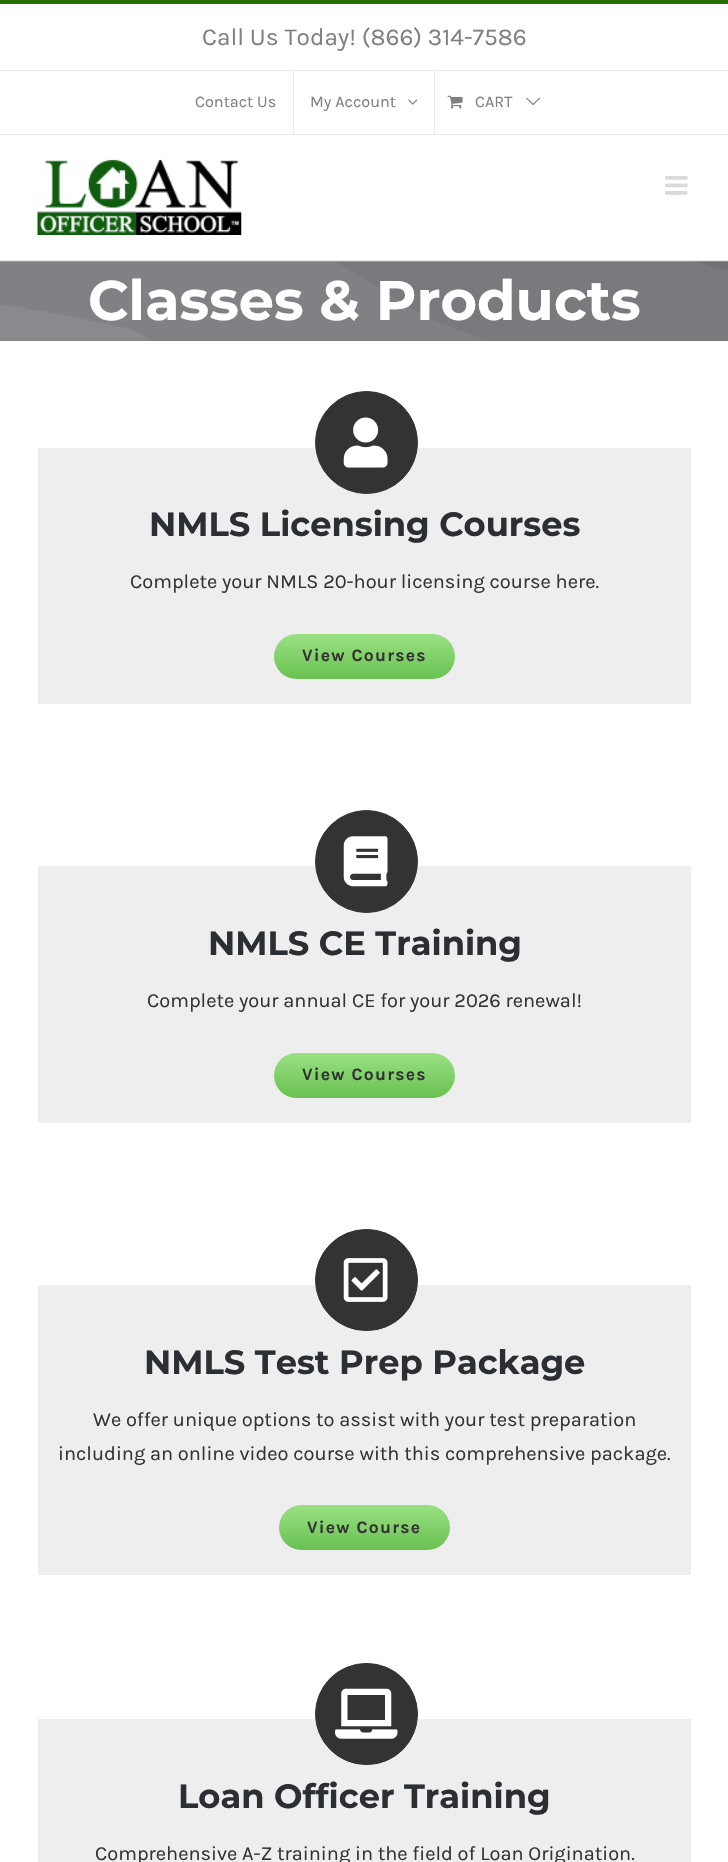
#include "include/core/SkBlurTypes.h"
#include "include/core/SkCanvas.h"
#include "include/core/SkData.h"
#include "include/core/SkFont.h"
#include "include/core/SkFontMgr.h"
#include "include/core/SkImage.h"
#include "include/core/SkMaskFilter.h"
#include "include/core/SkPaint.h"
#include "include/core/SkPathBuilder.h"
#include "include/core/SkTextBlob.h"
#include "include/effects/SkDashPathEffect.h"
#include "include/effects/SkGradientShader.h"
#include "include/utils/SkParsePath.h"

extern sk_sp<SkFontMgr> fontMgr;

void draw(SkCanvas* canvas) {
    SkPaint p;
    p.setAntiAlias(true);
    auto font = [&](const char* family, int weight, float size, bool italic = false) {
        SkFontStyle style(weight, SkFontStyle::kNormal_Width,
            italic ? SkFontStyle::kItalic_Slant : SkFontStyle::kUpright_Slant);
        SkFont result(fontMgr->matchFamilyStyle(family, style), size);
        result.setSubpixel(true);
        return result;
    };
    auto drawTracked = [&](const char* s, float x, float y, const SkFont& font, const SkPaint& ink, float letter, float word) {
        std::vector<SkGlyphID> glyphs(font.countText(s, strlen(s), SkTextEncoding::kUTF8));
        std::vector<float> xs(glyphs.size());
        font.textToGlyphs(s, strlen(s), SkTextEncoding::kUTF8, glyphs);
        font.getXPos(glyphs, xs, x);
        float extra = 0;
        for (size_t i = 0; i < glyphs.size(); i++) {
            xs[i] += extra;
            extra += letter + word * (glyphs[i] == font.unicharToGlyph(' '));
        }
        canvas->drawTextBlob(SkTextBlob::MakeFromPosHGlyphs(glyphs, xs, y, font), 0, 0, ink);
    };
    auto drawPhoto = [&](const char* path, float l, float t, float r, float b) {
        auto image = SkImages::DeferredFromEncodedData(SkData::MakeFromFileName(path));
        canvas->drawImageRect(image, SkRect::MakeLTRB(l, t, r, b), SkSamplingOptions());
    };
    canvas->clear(0xFFFFFFFF);
    {
        const struct { float l, t, r, b; SkColor color; } items[] = {
            {0, 0, 728, 4, 0xFF286F01},
            {0, 134, 728, 135, 0xFFEAEAEA},
            {0, 70, 728, 71, 0xFFEAEAEA},
        };
        for (auto [l, t, r, b, color] : items) {
            p.setColor(color);
            canvas->drawRect(SkRect::MakeLTRB(l, t, r, b), p);
        }
    }
    auto font1 = font("Karla", 400, 24.4f);
    p.setColor(0xFF808080);
    canvas->drawString("Call Us Today! (866) 314-7586", 202, 45, font1, p);
    auto font2 = font("Karla", 400, 16.25f);
    canvas->drawString("Contact Us", 195, 107, font2, p);
    p.setColor(0xFFEAEAEA);
    canvas->drawRect(SkRect::MakeLTRB(293, 71, 294, 134), p);
    p.setColor(0xFF808080);
    canvas->drawString("My Account", 310, 107, font2, p);
    drawPhoto("media/1.png", 408, 99, 418, 105);
    p.setColor(0xFFEAEAEA);
    canvas->drawRect(SkRect::MakeLTRB(434, 71, 435, 134), p);
    drawPhoto("media/2.png", 447, 95, 463, 109);
    p.setColor(0xFF808080);
    canvas->drawString("CART", 475, 107, font2, p);
    drawPhoto("media/3.png", 526, 97, 540, 106);
    p.setColor(0xFFEAEAEA);
    canvas->drawRect(SkRect::MakeLTRB(0, 260, 728, 261), p);
    drawPhoto("media/4.png", 37, 159, 242, 235);
    drawPhoto("media/5.png", 665, 176, 688, 195);
    drawPhoto("media/6.png", 0, 261, 728, 341);
    auto font3 = font("Montserrat", 700, 55.75f);
    p.setColor(0xFFFFFFFF);
    canvas->drawString("Classes & Products", 88, 320, font3, p);
    p.setColor(0xFFEEEEEE);
    canvas->drawRect(SkRect::MakeLTRB(38, 448, 691, 704), p);
    p.setColor(0xFF333333);
    canvas->drawCircle(366.5f, 442.5f, 51, p);
    p.setStyle(SkPaint::kStroke_Style);
    p.setStrokeWidth(1);
    canvas->drawCircle(366.5f, 442.5f, 51, p);
    drawPhoto("media/7.png", 343, 417, 388, 468);
    auto font4 = font("Montserrat", 700, 33.7f);
    p.setStyle(SkPaint::kFill_Style);
    p.setColor(0xFF2B2E32);
    canvas->drawString("NMLS Licensing Courses", 149, 536, font4, p);
    auto font5 = font("Karla", 400, 20);
    p.setColor(0xFF333333);
    canvas->drawString("Complete your NMLS 20-hour licensing course here.", 130, 588, font5, p);
    {
        const SkColor colors[] = {0xFF99E184, 0xFF69C150};
        const float stops[] = {0, 1};
        const SkPoint ends[] = {{364, 634}, {364, 679}};
        p.setShader(SkGradientShader::MakeLinear(ends, colors, stops, 2, SkTileMode::kClamp));
        p.setAlpha(255);
    }
    canvas->drawRoundRect(SkRect::MakeLTRB(274, 634, 455, 679), 22.5f, 22.5f, p);
    auto font6 = font("Karla", 700, 17.5f);
    p.setShader(nullptr);
    p.setColor(0xFF333333);
    drawTracked("View Courses", 302, 661, font6, p, 1.25f, 0);
    p.setColor(0xFFEEEEEE);
    canvas->drawRect(SkRect::MakeLTRB(38, 866, 691, 1123), p);
    p.setColor(0xFF333333);
    canvas->drawCircle(366.5f, 861.5f, 51, p);
    p.setStyle(SkPaint::kStroke_Style);
    canvas->drawCircle(366.5f, 861.5f, 51, p);
    drawPhoto("media/8.png", 343, 836, 388, 887);
    p.setStyle(SkPaint::kFill_Style);
    p.setColor(0xFF2B2E32);
    canvas->drawString("NMLS CE Training", 208, 955, font4, p);
    p.setColor(0xFF333333);
    canvas->drawString("Complete your annual CE for your 2026 renewal!", 147, 1007, font5, p);
    {
        const SkColor colors[] = {0xFF99E184, 0xFF69C150};
        const float stops[] = {0, 1};
        const SkPoint ends[] = {{364, 1053}, {364, 1098}};
        p.setShader(SkGradientShader::MakeLinear(ends, colors, stops, 2, SkTileMode::kClamp));
        p.setAlpha(255);
    }
    canvas->drawRoundRect(SkRect::MakeLTRB(274, 1053, 455, 1098), 22.5f, 22.5f, p);
    p.setShader(nullptr);
    p.setColor(0xFF333333);
    drawTracked("View Courses", 302, 1080, font6, p, 1.25f, 0);
    p.setColor(0xFFEEEEEE);
    canvas->drawRect(SkRect::MakeLTRB(38, 1285, 691, 1575), p);
    p.setColor(0xFF333333);
    canvas->drawRoundRect(SkRect::MakeLTRB(315.5f, 1229.5f, 417.5f, 1330.5f), 50.5f, 50.5f, p);
    p.setStyle(SkPaint::kStroke_Style);
    canvas->drawRoundRect(SkRect::MakeLTRB(315.5f, 1229.5f, 417.5f, 1330.5f), 50.5f, 50.5f, p);
    drawPhoto("media/9.png", 343, 1258, 388, 1302);
    p.setStyle(SkPaint::kFill_Style);
    p.setColor(0xFF2B2E32);
    canvas->drawString("NMLS Test Prep Package", 144, 1374, font4, p);
    p.setColor(0xFF333333);
    canvas->drawString("We offer unique options to assist with your test preparation", 93, 1426, font5, p);
    canvas->drawString("including an online video course with this comprehensive package.", 58, 1460, font5, p);
    {
        const SkColor colors[] = {0xFF99E184, 0xFF69C150};
        const float stops[] = {0, 1};
        const SkPoint ends[] = {{364, 1505}, {364, 1550}};
        p.setShader(SkGradientShader::MakeLinear(ends, colors, stops, 2, SkTileMode::kClamp));
        p.setAlpha(255);
    }
    canvas->drawRoundRect(SkRect::MakeLTRB(279, 1505, 450, 1550), 22.5f, 22.5f, p);
    p.setShader(nullptr);
    p.setColor(0xFF333333);
    drawTracked("View Course", 307, 1533, font6, p, 1.25f, 0);
    p.setColor(0xFFEEEEEE);
    canvas->drawRect(SkRect::MakeLTRB(38, 1719, 691, 1862), p);
    p.setColor(0xFF333333);
    canvas->drawRoundRect(SkRect::MakeLTRB(315.5f, 1663.5f, 417.5f, 1764.5f), 50.5f, 50.5f, p);
    p.setStyle(SkPaint::kStroke_Style);
    canvas->drawRoundRect(SkRect::MakeLTRB(315.5f, 1663.5f, 417.5f, 1764.5f), 50.5f, 50.5f, p);
    drawPhoto("media/10.png", 335, 1688, 398, 1739);
    p.setStyle(SkPaint::kFill_Style);
    p.setColor(0xFF2B2E32);
    canvas->drawString("Loan Officer Training", 178, 1808, font4, p);
    p.setColor(0xFF333333);
    canvas->drawString("Comprehensive A-Z training in the field of Loan Origination.", 95, 1860, font5, p);
}
